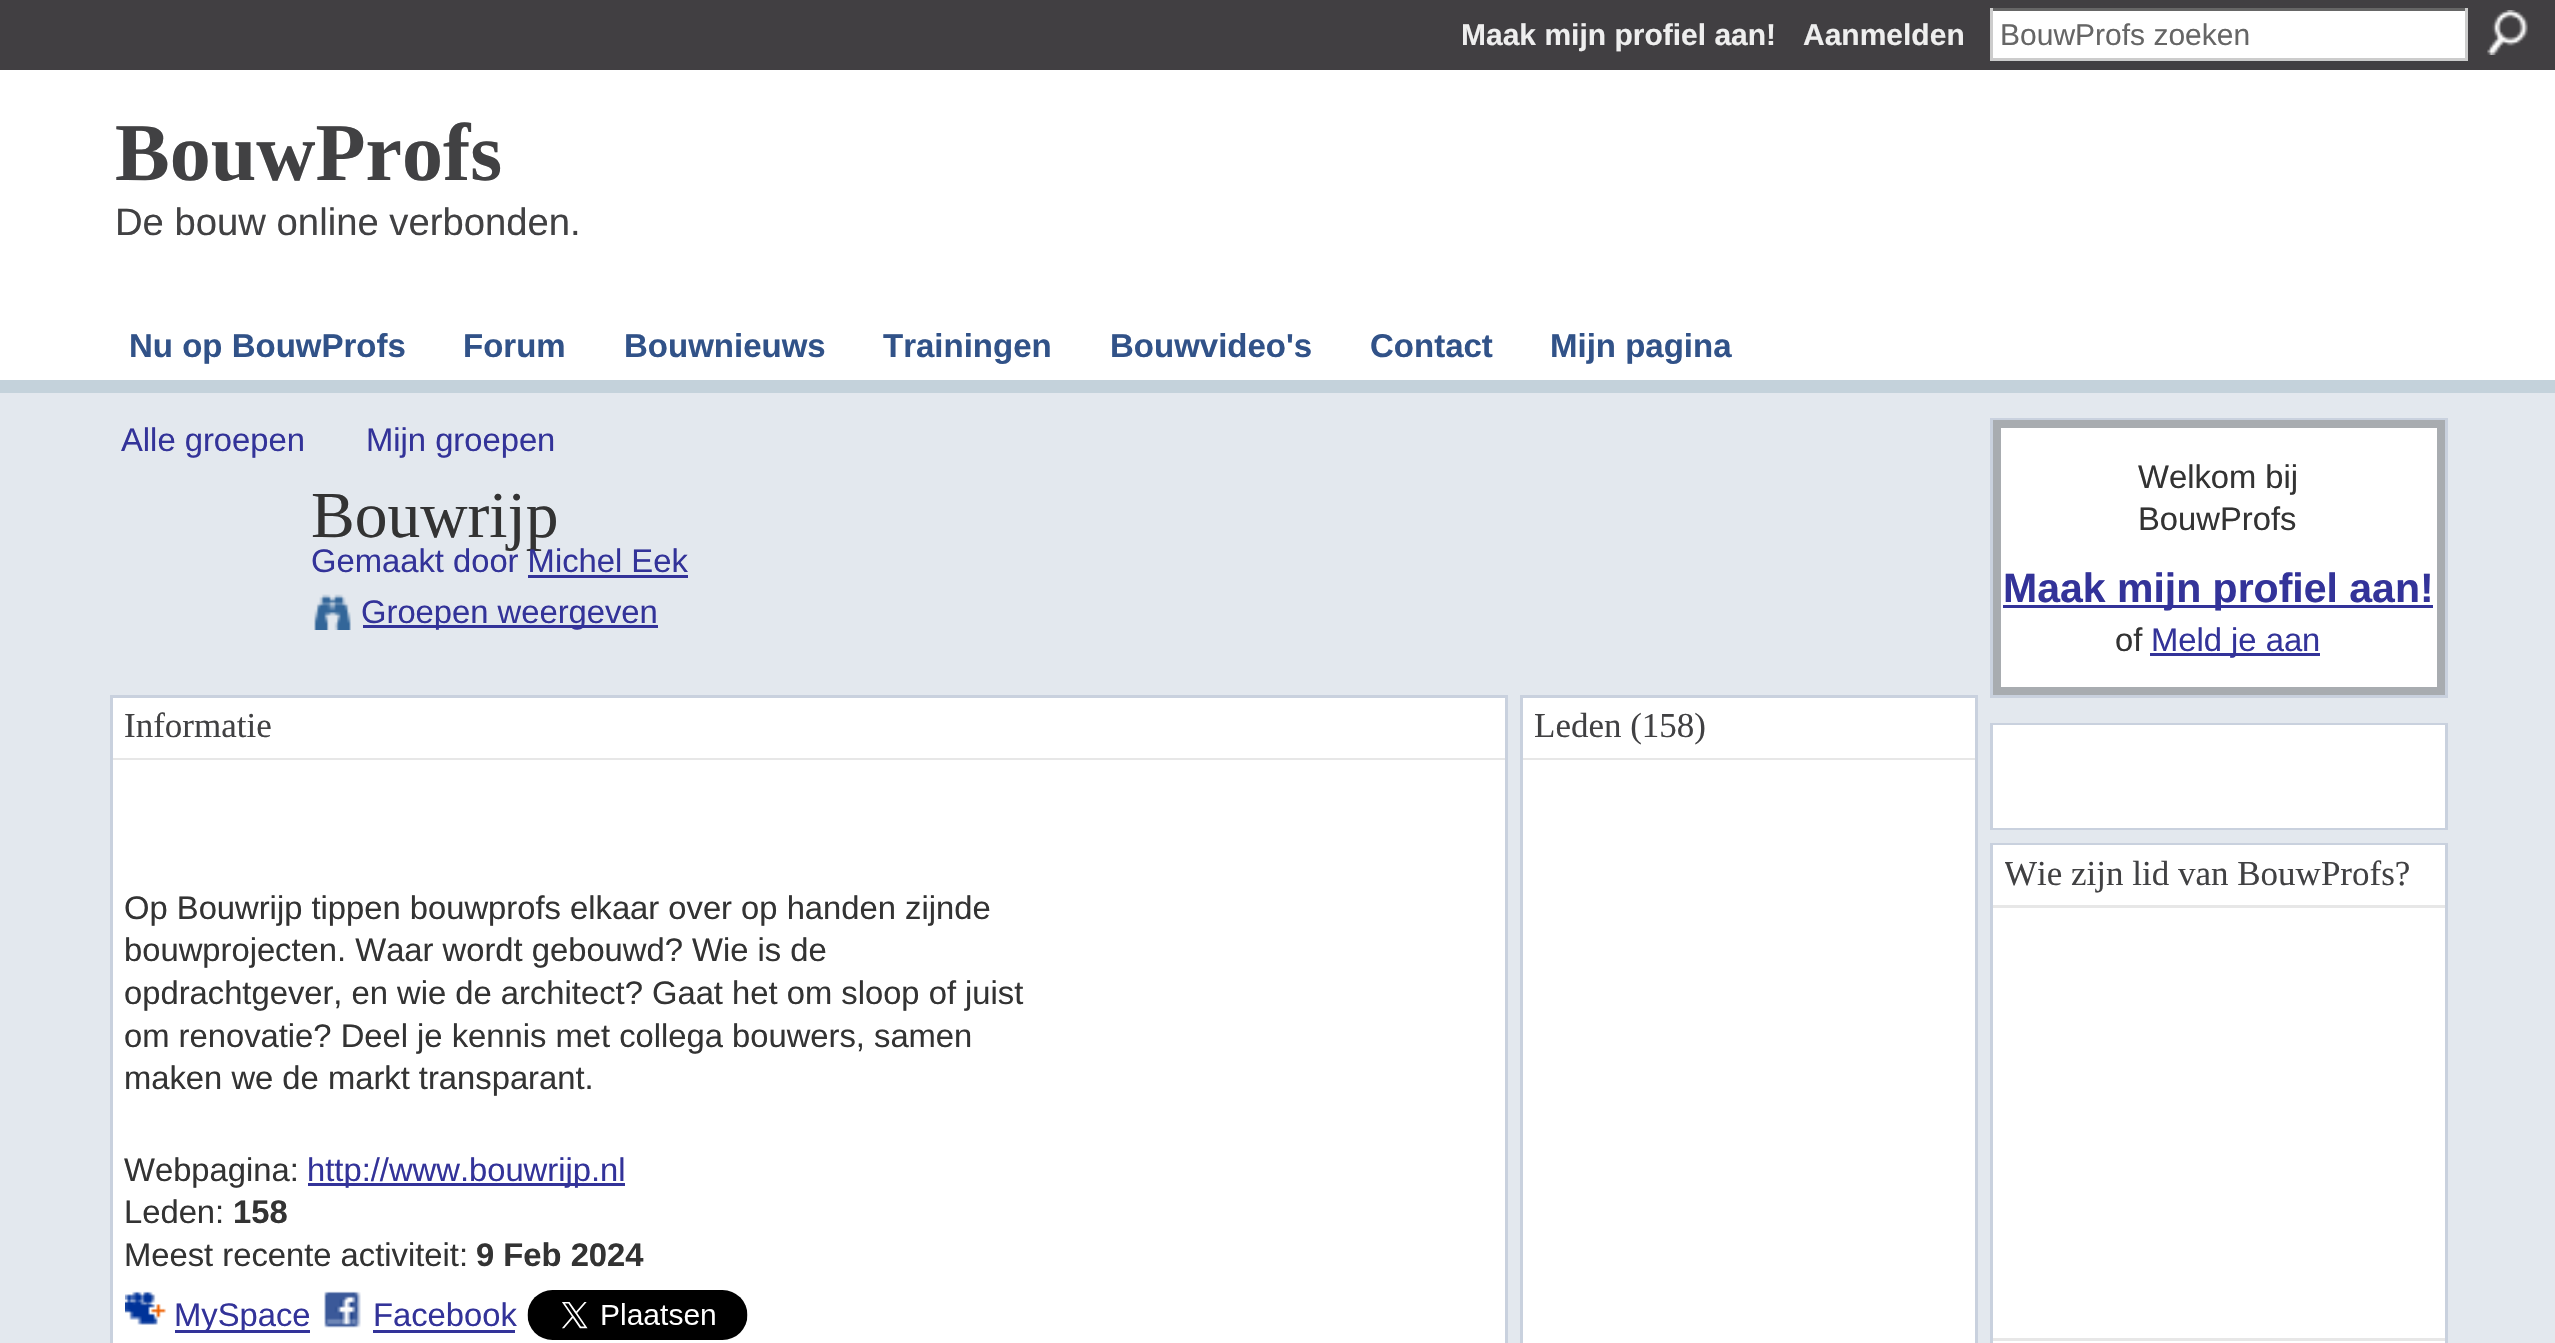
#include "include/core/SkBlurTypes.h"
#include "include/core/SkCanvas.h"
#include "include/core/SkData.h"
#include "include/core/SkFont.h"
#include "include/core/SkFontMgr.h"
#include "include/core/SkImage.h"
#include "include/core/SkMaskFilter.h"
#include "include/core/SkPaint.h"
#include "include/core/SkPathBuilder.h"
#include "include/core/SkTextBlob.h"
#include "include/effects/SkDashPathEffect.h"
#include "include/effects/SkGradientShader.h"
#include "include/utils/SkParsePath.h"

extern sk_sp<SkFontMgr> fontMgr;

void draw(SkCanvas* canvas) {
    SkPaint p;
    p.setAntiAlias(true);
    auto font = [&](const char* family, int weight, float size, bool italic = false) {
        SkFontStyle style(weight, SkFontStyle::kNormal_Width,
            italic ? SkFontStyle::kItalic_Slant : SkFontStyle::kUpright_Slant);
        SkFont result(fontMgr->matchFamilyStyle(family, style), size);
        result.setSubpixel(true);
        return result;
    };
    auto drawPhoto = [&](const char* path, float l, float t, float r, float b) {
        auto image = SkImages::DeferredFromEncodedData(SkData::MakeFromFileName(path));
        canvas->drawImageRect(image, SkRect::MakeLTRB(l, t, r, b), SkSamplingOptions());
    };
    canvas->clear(0xFFE3E8EE);
    p.setColor(0xFF413F42);
    canvas->drawRect(SkRect::MakeLTRB(0, 0, 2555, 70), p);
    auto font1 = font("Liberation Sans", 700, 30);
    p.setColor(0xFFEEEEEE);
    canvas->drawString("Maak mijn profiel aan!", 1461, 45, font1, p);
    canvas->drawString("Aanmelden", 1803, 45, font1, p);
    {
        const struct { float l, t, r, b; SkColor color; } items[] = {
            {1993, 11, 2465, 58, 0xFFFFFFFF},
            {1990, 8, 2468, 11, 0xFF666666},
            {2465, 8, 2468, 60, 0xFFCCCCCC},
            {1990, 58, 2468, 61, 0xFFCCCCCC},
            {1990, 8, 1993, 60, 0xFFCCCCCC},
        };
        for (auto [l, t, r, b, color] : items) {
            p.setColor(color);
            canvas->drawRect(SkRect::MakeLTRB(l, t, r, b), p);
        }
    }
    auto font2 = font("Liberation Sans", 400, 30);
    p.setColor(0xFF666666);
    canvas->drawString("BouwProfs zoeken", 2000, 45, font2, p);
    drawPhoto("media/1.png", 2487, 10, 2528, 55);
    p.setColor(0xFFFFFFFF);
    canvas->drawRect(SkRect::MakeLTRB(0, 70, 2555, 380), p);
    p.setColor(0xFFC4D2DB);
    canvas->drawRect(SkRect::MakeLTRB(0, 380, 2555, 393), p);
    auto font3 = font("Liberation Serif", 700, 82);
    p.setColor(0xFF414143);
    canvas->drawString("BouwProfs", 115, 180, font3, p);
    auto font4 = font("Liberation Sans", 400, 38.25f);
    canvas->drawString("De bouw online verbonden.", 115, 235, font4, p);
    auto font5 = font("Liberation Sans", 700, 33);
    p.setColor(0xFF315288);
    {
        const struct { const char* s; float x, y; } items[] = {
            {"Nu op BouwProfs", 129, 357},
            {"Forum", 463, 357},
            {"Bouwnieuws", 624, 357},
            {"Trainingen", 883, 357},
            {"Bouwvideo's", 1110, 357},
            {"Contact", 1370, 357},
            {"Mijn pagina", 1550, 357},
        };
        for (auto [s, x, y] : items) {
            canvas->drawString(s, x, y, font5, p);
        }
    }
    auto font6 = font("Liberation Sans", 400, 32.75f);
    p.setColor(0xFF333399);
    canvas->drawString("Alle groepen", 121, 451, font6, p);
    canvas->drawString("Mijn groepen", 366, 451, font6, p);
    auto font7 = font("Liberation Serif", 400, 65.5f);
    p.setColor(0xFF333333);
    canvas->drawString("Bouwrijp", 311, 537, font7, p);
    p.setColor(0xFF333399);
    canvas->drawString("Gemaakt door Michel Eek", 311, 572, font6, p);
    canvas->drawRect(SkRect::MakeLTRB(528, 575, 688, 578), p);
    drawPhoto("media/2.png", 314, 594, 351, 630);
    canvas->drawRect(SkRect::MakeLTRB(363, 625, 658, 628), p);
    canvas->drawString("Groepen weergeven", 361, 623, font6, p);
    p.setStyle(SkPaint::kStroke_Style);
    p.setStrokeWidth(3);
    p.setColor(0xFFC9D1DE);
    canvas->drawRect(SkRect::MakeLTRB(111.5f, 696.5f, 1506.5f, 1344.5f), p);
    p.setStyle(SkPaint::kFill_Style);
    p.setColor(0xFFFFFFFF);
    canvas->drawRect(SkRect::MakeLTRB(113, 698, 1505, 758), p);
    p.setColor(0xFFE7E7E7);
    canvas->drawRect(SkRect::MakeLTRB(113, 758, 1505, 760), p);
    auto font8 = font("Liberation Serif", 400, 35);
    p.setColor(0xFF414143);
    canvas->drawString("Informatie", 124, 737, font8, p);
    p.setColor(0xFFFFFFFF);
    canvas->drawRect(SkRect::MakeLTRB(113, 760, 1505, 1343), p);
    p.setColor(0xFF333333);
    {
        const struct { const char* s; float x, y; } items[] = {
            {"Op Bouwrijp tippen bouwprofs elkaar over op handen zijnde", 124, 919},
            {"bouwprojecten. Waar wordt gebouwd? Wie is de", 124, 961},
            {"opdrachtgever, en wie de architect? Gaat het om sloop of juist", 124, 1004},
            {"om renovatie? Deel je kennis met collega bouwers, samen", 124, 1047},
            {"maken we de markt transparant.", 124, 1089},
            {"Webpagina:", 124, 1181},
        };
        for (auto [s, x, y] : items) {
            canvas->drawString(s, x, y, font6, p);
        }
    }
    p.setColor(0xFF333399);
    canvas->drawRect(SkRect::MakeLTRB(308, 1183, 625, 1186), p);
    canvas->drawString("http://www.bouwrijp.nl", 307, 1181, font6, p);
    p.setColor(0xFF333333);
    canvas->drawString("Leden:", 124, 1223, font6, p);
    auto font9 = font("Liberation Sans", 700, 32.75f);
    canvas->drawString("158", 233, 1223, font9, p);
    canvas->drawString("Meest recente activiteit:", 124, 1266, font6, p);
    canvas->drawString("9 Feb 2024", 476, 1266, font9, p);
    drawPhoto("media/3.png", 125, 1291, 166, 1325);
    p.setColor(0xFF333399);
    canvas->drawRect(SkRect::MakeLTRB(175, 1330, 310, 1333), p);
    canvas->drawString("MySpace", 174, 1326, font6, p);
    drawPhoto("media/4.png", 324, 1291, 361, 1328);
    canvas->drawString("Facebook", 373, 1326, font6, p);
    canvas->drawRect(SkRect::MakeLTRB(373, 1330, 515, 1333), p);
    drawPhoto("media/5.png", 527, 1290, 748, 1340);
    p.setStyle(SkPaint::kStroke_Style);
    p.setColor(0xFFC9D1DE);
    canvas->drawRect(SkRect::MakeLTRB(1521.5f, 696.5f, 1976.5f, 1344.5f), p);
    p.setStyle(SkPaint::kFill_Style);
    p.setColor(0xFFFFFFFF);
    canvas->drawRect(SkRect::MakeLTRB(1523, 698, 1975, 758), p);
    p.setColor(0xFFE7E7E7);
    canvas->drawRect(SkRect::MakeLTRB(1523, 758, 1975, 760), p);
    p.setColor(0xFF414143);
    canvas->drawString("Leden (158)", 1534, 737, font8, p);
    p.setColor(0xFFFFFFFF);
    canvas->drawRect(SkRect::MakeLTRB(1523, 760, 1975, 1343), p);
    p.setStyle(SkPaint::kStroke_Style);
    p.setColor(0xFFC9D1DE);
    canvas->drawRect(SkRect::MakeLTRB(1991.5f, 419.5f, 2446.5f, 696.5f), p);
    p.setStyle(SkPaint::kFill_Style);
    p.setColor(0xFFFFFFFF);
    canvas->drawRect(SkRect::MakeLTRB(1997, 424, 2441, 691), p);
    p.setStyle(SkPaint::kStroke_Style);
    p.setStrokeWidth(8);
    p.setColor(0xFFA8ACB0);
    canvas->drawRect(SkRect::MakeLTRB(1997, 424, 2441, 691), p);
    p.setStyle(SkPaint::kFill_Style);
    p.setColor(0xFF333333);
    canvas->drawString("Welkom bij", 2138, 488, font6, p);
    canvas->drawString("BouwProfs", 2138, 530, font6, p);
    p.setColor(0xFF333399);
    canvas->drawRect(SkRect::MakeLTRB(2003, 605, 2433, 608), p);
    auto font10 = font("Liberation Sans", 700, 41);
    canvas->drawString("Maak mijn profiel aan!", 2003, 602, font10, p);
    p.setColor(0xFF333333);
    canvas->drawString("of", 2115, 651, font6, p);
    p.setColor(0xFF333399);
    canvas->drawRect(SkRect::MakeLTRB(2150, 653, 2320, 656), p);
    canvas->drawString("Meld je aan", 2151, 651, font6, p);
    p.setStyle(SkPaint::kStroke_Style);
    p.setStrokeWidth(3);
    p.setColor(0xFFC9D1DE);
    canvas->drawRect(SkRect::MakeLTRB(1991.5f, 724.5f, 2446.5f, 828.5f), p);
    p.setStyle(SkPaint::kFill_Style);
    p.setColor(0xFFFFFFFF);
    canvas->drawRect(SkRect::MakeLTRB(1993, 725, 2445, 828), p);
    p.setStyle(SkPaint::kStroke_Style);
    p.setColor(0xFFC9D1DE);
    canvas->drawRect(SkRect::MakeLTRB(1991.5f, 844.5f, 2446.5f, 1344.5f), p);
    p.setStyle(SkPaint::kFill_Style);
    p.setColor(0xFFFFFFFF);
    canvas->drawRect(SkRect::MakeLTRB(1993, 845, 2445, 905), p);
    p.setColor(0xFFE7E7E7);
    canvas->drawRect(SkRect::MakeLTRB(1993, 905, 2445, 908), p);
    canvas->save();
    canvas->clipRect(SkRect::MakeLTRB(2005, 853, 2410, 898));
    p.setColor(0xFF414143);
    canvas->drawString("Wie zijn lid van BouwProfs?", 2004, 885, font8, p);
    canvas->restore();
    {
        const struct { float l, t, r, b; SkColor color; } items[] = {
            {1993, 908, 2445, 1338, 0xFFFFFFFF},
            {1993, 1341, 2445, 1343, 0xFFFFFFFF},
            {1993, 1338, 2445, 1341, 0xFFE7E7E7},
        };
        for (auto [l, t, r, b, color] : items) {
            p.setColor(color);
            canvas->drawRect(SkRect::MakeLTRB(l, t, r, b), p);
        }
    }
}
